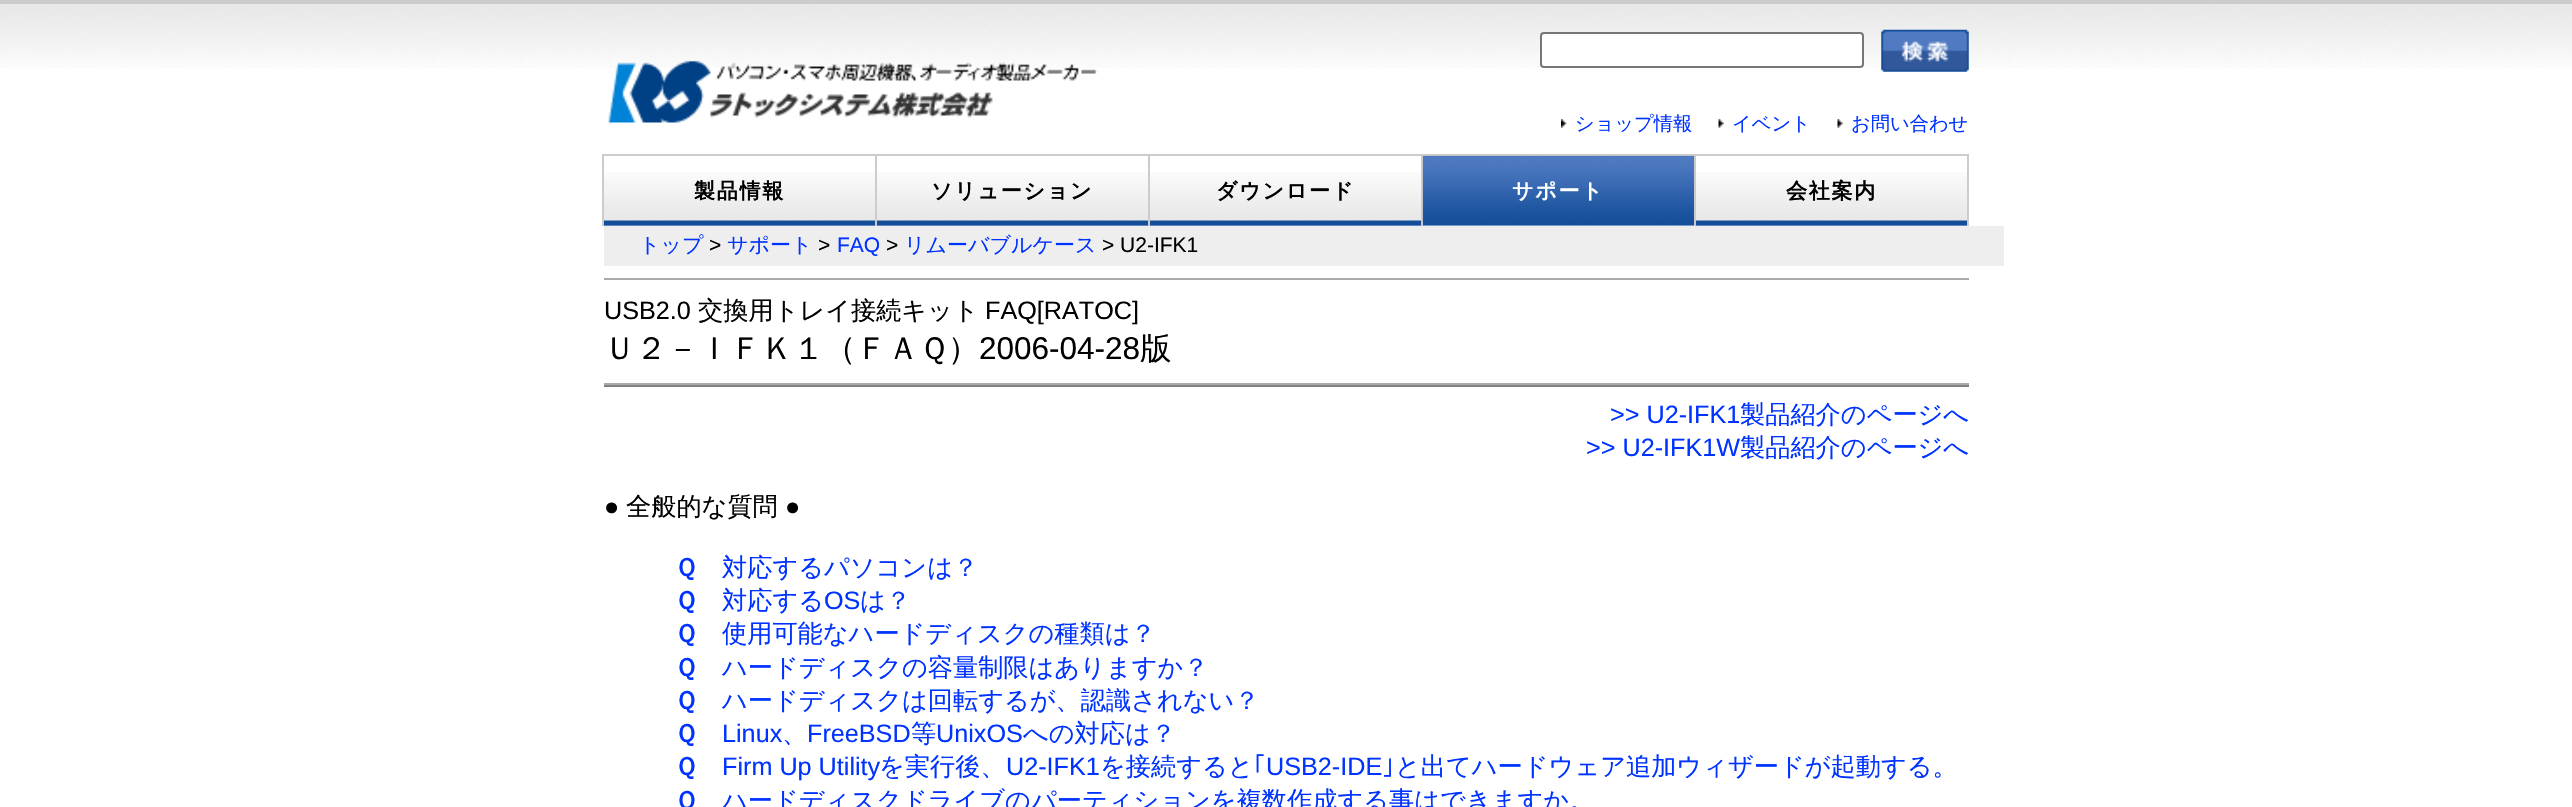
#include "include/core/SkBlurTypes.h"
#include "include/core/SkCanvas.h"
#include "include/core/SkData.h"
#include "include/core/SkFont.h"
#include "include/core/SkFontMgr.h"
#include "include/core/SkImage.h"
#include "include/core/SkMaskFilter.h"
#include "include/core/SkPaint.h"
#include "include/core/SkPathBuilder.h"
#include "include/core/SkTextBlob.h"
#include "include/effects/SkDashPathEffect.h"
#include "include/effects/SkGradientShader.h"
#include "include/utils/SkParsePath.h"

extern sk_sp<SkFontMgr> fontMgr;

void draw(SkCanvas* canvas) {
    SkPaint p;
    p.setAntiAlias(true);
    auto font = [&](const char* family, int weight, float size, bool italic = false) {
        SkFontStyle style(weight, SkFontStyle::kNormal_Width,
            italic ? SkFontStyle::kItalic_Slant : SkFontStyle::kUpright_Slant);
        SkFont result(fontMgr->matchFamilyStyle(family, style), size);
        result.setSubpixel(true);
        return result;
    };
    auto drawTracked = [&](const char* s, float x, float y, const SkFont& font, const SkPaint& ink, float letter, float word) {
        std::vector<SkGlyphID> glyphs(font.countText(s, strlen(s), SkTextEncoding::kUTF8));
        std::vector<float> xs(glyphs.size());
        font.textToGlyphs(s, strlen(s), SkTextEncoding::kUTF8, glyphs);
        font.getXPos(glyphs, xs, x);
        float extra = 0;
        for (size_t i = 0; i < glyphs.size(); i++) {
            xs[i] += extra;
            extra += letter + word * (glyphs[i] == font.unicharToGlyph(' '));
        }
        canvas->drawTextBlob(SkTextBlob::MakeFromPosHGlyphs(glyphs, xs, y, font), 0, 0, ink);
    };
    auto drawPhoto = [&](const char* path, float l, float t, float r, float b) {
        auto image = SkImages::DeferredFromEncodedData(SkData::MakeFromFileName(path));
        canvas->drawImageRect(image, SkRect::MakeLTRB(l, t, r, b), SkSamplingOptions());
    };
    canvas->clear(0xFFFFFFFF);
    drawPhoto("media/1.png", 0, 4, 2572, 68);
    p.setColor(0xFFCCCCCC);
    canvas->drawRect(SkRect::MakeLTRB(0, 0, 2572, 4), p);
    p.setColor(0xFFFFFFFF);
    canvas->drawRoundRect(SkRect::MakeLTRB(1541, 33, 1863, 67), 3, 3, p);
    p.setStyle(SkPaint::kStroke_Style);
    p.setStrokeWidth(2);
    p.setColor(0xFF767676);
    canvas->drawRoundRect(SkRect::MakeLTRB(1541, 33, 1863, 67), 3, 3, p);
    drawPhoto("media/2.png", 1881, 29, 1969, 72);
    drawPhoto("media/3.png", 608, 60, 1098, 123);
    drawPhoto("media/4.png", 1561, 119, 1567, 128);
    auto font1 = font("WenQuanYi Zen Hei", 500, 19.25f);
    p.setStyle(SkPaint::kFill_Style);
    p.setColor(0xFF0033FF);
    canvas->drawString("ショップ情報", 1575, 130, font1, p);
    drawPhoto("media/5.png", 1718, 119, 1724, 128);
    canvas->drawString("イベント", 1732, 130, font1, p);
    drawPhoto("media/5.png", 1837, 119, 1843, 128);
    canvas->drawString("お問い合わせ", 1851, 130, font1, p);
    drawPhoto("media/6.png", 604, 172, 875, 226);
    p.setColor(0xFFCECBCE);
    canvas->drawRect(SkRect::MakeLTRB(602, 154, 1969, 156), p);
    canvas->drawRect(SkRect::MakeLTRB(602, 154, 604, 226), p);
    auto font2 = font("WenQuanYi Zen Hei", 700, 21);
    p.setColor(0xFF000000);
    drawTracked("製品情報", 694, 198, font2, p, 1.75f, 0);
    drawPhoto("media/6.png", 877, 172, 1148, 226);
    p.setColor(0xFFCECBCE);
    canvas->drawRect(SkRect::MakeLTRB(875, 154, 877, 226), p);
    p.setColor(0xFF000000);
    drawTracked("ソリューション", 931, 198, font2, p, 1.75f, 0);
    drawPhoto("media/6.png", 1150, 172, 1421, 226);
    p.setColor(0xFFCECBCE);
    canvas->drawRect(SkRect::MakeLTRB(1148, 154, 1150, 226), p);
    p.setColor(0xFF000000);
    drawTracked("ダウンロード", 1216, 198, font2, p, 1.75f, 0);
    p.setColor(0xFFCECBCE);
    canvas->drawRect(SkRect::MakeLTRB(1421, 154, 1423, 226), p);
    drawPhoto("media/7.png", 1422, 155, 1694, 226);
    p.setColor(0xFFFFFFFF);
    drawTracked("サポート", 1512, 198, font2, p, 1.75f, 0);
    drawPhoto("media/6.png", 1696, 172, 1967, 226);
    p.setColor(0xFFCECBCE);
    canvas->drawRect(SkRect::MakeLTRB(1967, 154, 1969, 226), p);
    canvas->drawRect(SkRect::MakeLTRB(1694, 154, 1696, 226), p);
    p.setColor(0xFF000000);
    drawTracked("会社案内", 1786, 198, font2, p, 1.75f, 0);
    p.setColor(0xFFEEEEEE);
    canvas->drawRect(SkRect::MakeLTRB(604, 226, 2004, 266), p);
    auto font3 = font("WenQuanYi Zen Hei", 500, 21);
    p.setColor(0xFF0033FF);
    canvas->drawString("トップ", 639, 252, font3, p);
    auto font4 = font("Liberation Sans", 400, 21);
    p.setColor(0xFF000000);
    canvas->drawString(">", 709, 252, font4, p);
    p.setColor(0xFF0033FF);
    canvas->drawString("サポート", 727, 252, font3, p);
    p.setColor(0xFF000000);
    canvas->drawString(">", 818, 252, font4, p);
    p.setColor(0xFF0033FF);
    canvas->drawString("FAQ", 837, 252, font4, p);
    p.setColor(0xFF000000);
    canvas->drawString(">", 886, 252, font4, p);
    p.setColor(0xFF0033FF);
    canvas->drawString("リムーバブルケース", 904, 252, font3, p);
    p.setColor(0xFF000000);
    canvas->drawString("> U2-IFK1", 1102, 252, font4, p);
    p.setColor(0xFFAAAAAA);
    canvas->drawRect(SkRect::MakeLTRB(604, 278, 1969, 280), p);
    auto font5 = font("Liberation Sans", 400, 25.2f);
    p.setColor(0xFF000000);
    canvas->drawString("USB2.0", 604, 319, font5, p);
    auto font6 = font("WenQuanYi Zen Hei", 500, 25.2f);
    canvas->drawString("交換用トレイ接続キット", 698, 319, font6, p);
    canvas->drawString("FAQ[RATOC]", 985, 319, font5, p);
    auto font7 = font("WenQuanYi Zen Hei", 500, 31.5f);
    canvas->drawString("Ｕ２－ＩＦＫ１（ＦＡＱ）", 604, 359, font7, p);
    auto font8 = font("Liberation Sans", 400, 31.5f);
    canvas->drawString("2006-04-28", 979, 359, font8, p);
    canvas->drawString("版", 1140, 359, font7, p);
    p.setColor(0xFF808080);
    canvas->drawRect(SkRect::MakeLTRB(604, 385, 1969, 387), p);
    p.setColor(0xFFAAAAAA);
    canvas->drawRect(SkRect::MakeLTRB(604, 383, 1969, 385), p);
    p.setColor(0xFF0033FF);
    canvas->drawString(">> U2-IFK1", 1610, 423, font5, p);
    canvas->drawString("製品紹介のページへ", 1740, 423, font6, p);
    canvas->drawString(">> U2-IFK1W", 1586, 456, font5, p);
    canvas->drawString("製品紹介のページへ", 1740, 456, font6, p);
    p.setColor(0xFF000000);
    canvas->drawString("●", 604, 515, font5, p);
    canvas->drawString("全般的な質問", 626, 515, font6, p);
    canvas->drawString("●", 785, 515, font5, p);
    auto font9 = font("WenQuanYi Zen Hei", 700, 25.2f);
    p.setColor(0xFF0033FF);
    canvas->drawString("Ｑ", 674, 576, font9, p);
    canvas->drawString("対応するパソコンは？", 722, 576, font6, p);
    canvas->drawString("Ｑ", 674, 609, font9, p);
    canvas->drawString("対応する", 722, 609, font6, p);
    canvas->drawString("OS", 824, 609, font5, p);
    canvas->drawString("は？", 860, 609, font6, p);
    canvas->drawString("Ｑ", 674, 642, font9, p);
    canvas->drawString("使用可能なハードディスクの種類は？", 722, 642, font6, p);
    canvas->drawString("Ｑ", 674, 676, font9, p);
    canvas->drawString("ハードディスクの容量制限はありますか？", 722, 676, font6, p);
    canvas->drawString("Ｑ", 674, 709, font9, p);
    canvas->drawString("ハードディスクは回転するが、認識されない？", 722, 709, font6, p);
    canvas->drawString("Ｑ", 674, 742, font9, p);
    canvas->drawString("Linux", 722, 742, font5, p);
    canvas->drawString("、", 782, 742, font6, p);
    canvas->drawString("FreeBSD", 807, 742, font5, p);
    canvas->drawString("等", 911, 742, font6, p);
    canvas->drawString("UnixOS", 936, 742, font5, p);
    canvas->drawString("への対応は？", 1023, 742, font6, p);
    canvas->drawString("Ｑ", 674, 775, font9, p);
    canvas->drawString("Firm Up Utility", 722, 775, font5, p);
    canvas->drawString("を実行後、", 879, 775, font6, p);
    canvas->drawString("U2-IFK1", 1006, 775, font5, p);
    canvas->drawString("を接続すると", 1100, 775, font6, p);
    auto font10 = font("IPAPGothic", 400, 25.2f);
    canvas->drawString("｢", 1253, 775, font10, p);
    canvas->drawString("USB2-IDE", 1266, 775, font5, p);
    canvas->drawString("｣", 1382, 775, font10, p);
    canvas->drawString("と出てハードウェア追加ウィザードが起動する。", 1395, 775, font6, p);
    canvas->drawString("Ｑ", 674, 809, font9, p);
    canvas->drawString("ハードディスクドライブのパーティションを複数作成する事はできますか。", 722, 809, font6, p);
}
